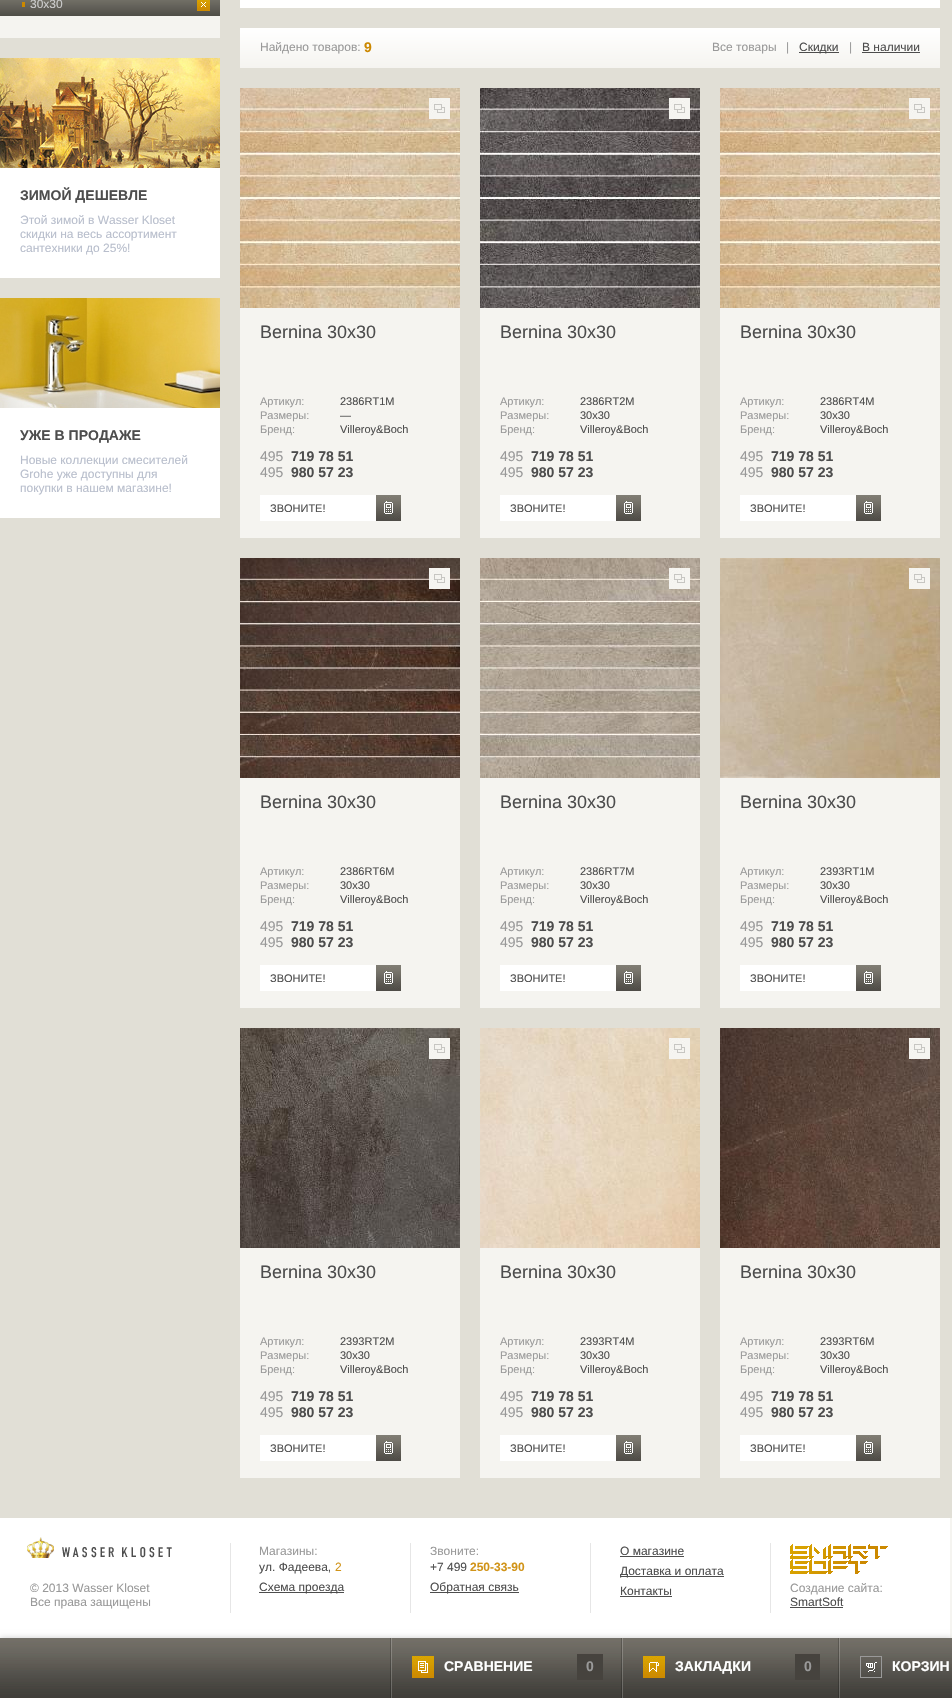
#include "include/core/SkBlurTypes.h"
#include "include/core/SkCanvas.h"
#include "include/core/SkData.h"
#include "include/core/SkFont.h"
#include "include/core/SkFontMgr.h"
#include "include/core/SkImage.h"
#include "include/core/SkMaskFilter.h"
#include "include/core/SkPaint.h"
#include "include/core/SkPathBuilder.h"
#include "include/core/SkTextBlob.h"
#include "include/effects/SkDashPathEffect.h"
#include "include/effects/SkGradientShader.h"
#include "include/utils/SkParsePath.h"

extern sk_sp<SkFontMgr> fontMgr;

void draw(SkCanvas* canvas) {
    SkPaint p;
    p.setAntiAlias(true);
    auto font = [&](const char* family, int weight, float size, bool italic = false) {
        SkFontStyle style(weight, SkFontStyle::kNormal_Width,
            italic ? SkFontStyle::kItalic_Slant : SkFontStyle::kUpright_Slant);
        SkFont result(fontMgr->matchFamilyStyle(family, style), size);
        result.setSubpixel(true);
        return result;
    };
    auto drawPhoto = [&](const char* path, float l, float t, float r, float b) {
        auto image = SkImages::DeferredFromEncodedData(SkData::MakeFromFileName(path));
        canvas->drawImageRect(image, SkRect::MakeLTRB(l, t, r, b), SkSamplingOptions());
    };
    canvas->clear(0xFFE1DFD6);
    p.setColor(0xFFF5F4F0);
    canvas->drawRect(SkRect::MakeLTRB(0, 16, 220, 38), p);
    {
        const SkColor colors[] = {0xFF807D74, 0xFF4F4E47};
        const float stops[] = {0, 1};
        const SkPoint ends[] = {{110, -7}, {110, 16}};
        p.setShader(SkGradientShader::MakeLinear(ends, colors, stops, 2, SkTileMode::kClamp));
        p.setAlpha(255);
    }
    canvas->drawRect(SkRect::MakeLTRB(0, 0, 220, 16), p);
    p.setShader(nullptr);
    p.setColor(0xFFCC8800);
    canvas->drawRect(SkRect::MakeLTRB(22, 2, 25, 7), p);
    auto font1 = font("Liberation Sans", 400, 12);
    p.setColor(0xFFCCCCCC);
    canvas->drawString("30x30", 30, 8, font1, p);
    drawPhoto("media/1.png", 197, 0, 210, 11);
    p.setColor(0xFFFFFFFF);
    canvas->drawRect(SkRect::MakeLTRB(0, 168, 220, 278), p);
    drawPhoto("media/2.png", 0, 58, 220, 168);
    auto font2 = font("Liberation Sans", 700, 14);
    p.setColor(0xFF4D4D4D);
    canvas->drawString("ЗИМОЙ ДЕШЕВЛЕ", 20, 200, font2, p);
    p.setColor(0xFFB8BECC);
    {
        const struct { const char* s; float x, y; } items[] = {
            {"Этой зимой в Wasser Kloset", 20, 224},
            {"скидки на весь ассортимент", 20, 238},
            {"сантехники до 25%!", 20, 252},
        };
        for (auto [s, x, y] : items) {
            canvas->drawString(s, x, y, font1, p);
        }
    }
    p.setColor(0xFFFFFFFF);
    canvas->drawRect(SkRect::MakeLTRB(0, 408, 220, 518), p);
    drawPhoto("media/3.png", 0, 298, 220, 408);
    p.setColor(0xFF4D4D4D);
    canvas->drawString("УЖЕ В ПРОДАЖЕ", 20, 440, font2, p);
    p.setColor(0xFFB8BECC);
    {
        const struct { const char* s; float x, y; } items[] = {
            {"Новые коллекции смесителей", 20, 464},
            {"Grohe уже доступны для", 20, 478},
            {"покупки в нашем магазине!", 20, 492},
        };
        for (auto [s, x, y] : items) {
            canvas->drawString(s, x, y, font1, p);
        }
    }
    p.setColor(0xFFFFFFFF);
    canvas->drawRect(SkRect::MakeLTRB(240, 0, 940, 8), p);
    {
        const SkColor colors[] = {0xFFFFFFFF, 0xFFF5F4F0};
        const float stops[] = {0, 1};
        const SkPoint ends[] = {{590, 28}, {590, 68}};
        p.setShader(SkGradientShader::MakeLinear(ends, colors, stops, 2, SkTileMode::kClamp));
        p.setAlpha(255);
    }
    canvas->drawRect(SkRect::MakeLTRB(240, 28, 940, 68), p);
    p.setShader(nullptr);
    p.setColor(0xFF999999);
    canvas->drawString("Найдено товаров:", 260, 51, font1, p);
    p.setColor(0xFFCC8800);
    canvas->drawString("9", 364, 52, font2, p);
    p.setColor(0xFF999999);
    canvas->drawString("Все товары", 712, 51, font1, p);
    canvas->drawString("|", 786, 51, font1, p);
    p.setColor(0xFF4D4D4D);
    canvas->drawRect(SkRect::MakeLTRB(799, 52, 839, 53), p);
    canvas->drawString("Скидки", 799, 51, font1, p);
    p.setColor(0xFF999999);
    canvas->drawString("|", 849, 51, font1, p);
    p.setColor(0xFF4D4D4D);
    canvas->drawString("В наличии", 862, 51, font1, p);
    canvas->drawRect(SkRect::MakeLTRB(862, 52, 920, 53), p);
    p.setColor(0xFFF5F4F0);
    canvas->drawRect(SkRect::MakeLTRB(240, 308, 460, 538), p);
    drawPhoto("media/4.png", 240, 88, 460, 308);
    drawPhoto("media/5.png", 429, 98, 450, 119);
    auto font3 = font("Liberation Sans", 400, 18);
    p.setColor(0xFF4D4D4D);
    canvas->drawString("Bernina 30x30", 260, 338, font3, p);
    auto font4 = font("Liberation Sans", 400, 11);
    p.setColor(0xFF999999);
    canvas->drawString("Артикул:", 260, 405, font4, p);
    p.setColor(0xFF4D4D4D);
    canvas->drawString("2386RT1M", 340, 405, font4, p);
    p.setColor(0xFF999999);
    canvas->drawString("Размеры:", 260, 419, font4, p);
    p.setColor(0xFF4D4D4D);
    canvas->drawString("—", 340, 419, font4, p);
    p.setColor(0xFF999999);
    canvas->drawString("Бренд:", 260, 433, font4, p);
    p.setColor(0xFF4D4D4D);
    canvas->drawString("Villeroy&Boch", 340, 433, font4, p);
    auto font5 = font("Liberation Sans", 400, 14);
    p.setColor(0xFF999999);
    canvas->drawString("495", 260, 461, font5, p);
    p.setColor(0xFF4D4D4D);
    canvas->drawString("719 78 51", 291, 461, font2, p);
    p.setColor(0xFF999999);
    canvas->drawString("495", 260, 477, font5, p);
    p.setColor(0xFF4D4D4D);
    canvas->drawString("980 57 23", 291, 477, font2, p);
    p.setColor(0xFFFFFFFF);
    canvas->drawRect(SkRect::MakeLTRB(260, 495, 376, 521), p);
    drawPhoto("media/6.png", 376, 495, 401, 521);
    p.setColor(0xFF4D4D4D);
    canvas->drawString("ЗВОНИТЕ!", 270, 512, font4, p);
    p.setColor(0xFFF5F4F0);
    canvas->drawRect(SkRect::MakeLTRB(480, 308, 700, 538), p);
    drawPhoto("media/7.png", 480, 88, 700, 308);
    drawPhoto("media/5.png", 669, 98, 690, 119);
    p.setColor(0xFF4D4D4D);
    canvas->drawString("Bernina 30x30", 500, 338, font3, p);
    p.setColor(0xFF999999);
    canvas->drawString("Артикул:", 500, 405, font4, p);
    p.setColor(0xFF4D4D4D);
    canvas->drawString("2386RT2M", 580, 405, font4, p);
    p.setColor(0xFF999999);
    canvas->drawString("Размеры:", 500, 419, font4, p);
    p.setColor(0xFF4D4D4D);
    canvas->drawString("30x30", 580, 419, font4, p);
    p.setColor(0xFF999999);
    canvas->drawString("Бренд:", 500, 433, font4, p);
    p.setColor(0xFF4D4D4D);
    canvas->drawString("Villeroy&Boch", 580, 433, font4, p);
    p.setColor(0xFF999999);
    canvas->drawString("495", 500, 461, font5, p);
    p.setColor(0xFF4D4D4D);
    canvas->drawString("719 78 51", 531, 461, font2, p);
    p.setColor(0xFF999999);
    canvas->drawString("495", 500, 477, font5, p);
    p.setColor(0xFF4D4D4D);
    canvas->drawString("980 57 23", 531, 477, font2, p);
    p.setColor(0xFFFFFFFF);
    canvas->drawRect(SkRect::MakeLTRB(500, 495, 616, 521), p);
    drawPhoto("media/6.png", 616, 495, 641, 521);
    p.setColor(0xFF4D4D4D);
    canvas->drawString("ЗВОНИТЕ!", 510, 512, font4, p);
    p.setColor(0xFFF5F4F0);
    canvas->drawRect(SkRect::MakeLTRB(720, 308, 940, 538), p);
    drawPhoto("media/4.png", 720, 88, 940, 308);
    drawPhoto("media/5.png", 909, 98, 930, 119);
    p.setColor(0xFF4D4D4D);
    canvas->drawString("Bernina 30x30", 740, 338, font3, p);
    p.setColor(0xFF999999);
    canvas->drawString("Артикул:", 740, 405, font4, p);
    p.setColor(0xFF4D4D4D);
    canvas->drawString("2386RT4M", 820, 405, font4, p);
    p.setColor(0xFF999999);
    canvas->drawString("Размеры:", 740, 419, font4, p);
    p.setColor(0xFF4D4D4D);
    canvas->drawString("30x30", 820, 419, font4, p);
    p.setColor(0xFF999999);
    canvas->drawString("Бренд:", 740, 433, font4, p);
    p.setColor(0xFF4D4D4D);
    canvas->drawString("Villeroy&Boch", 820, 433, font4, p);
    p.setColor(0xFF999999);
    canvas->drawString("495", 740, 461, font5, p);
    p.setColor(0xFF4D4D4D);
    canvas->drawString("719 78 51", 771, 461, font2, p);
    p.setColor(0xFF999999);
    canvas->drawString("495", 740, 477, font5, p);
    p.setColor(0xFF4D4D4D);
    canvas->drawString("980 57 23", 771, 477, font2, p);
    p.setColor(0xFFFFFFFF);
    canvas->drawRect(SkRect::MakeLTRB(740, 495, 856, 521), p);
    drawPhoto("media/6.png", 856, 495, 881, 521);
    p.setColor(0xFF4D4D4D);
    canvas->drawString("ЗВОНИТЕ!", 750, 512, font4, p);
    p.setColor(0xFFF5F4F0);
    canvas->drawRect(SkRect::MakeLTRB(240, 778, 460, 1008), p);
    drawPhoto("media/8.png", 240, 558, 460, 778);
    drawPhoto("media/5.png", 429, 568, 450, 589);
    p.setColor(0xFF4D4D4D);
    canvas->drawString("Bernina 30x30", 260, 808, font3, p);
    p.setColor(0xFF999999);
    canvas->drawString("Артикул:", 260, 875, font4, p);
    p.setColor(0xFF4D4D4D);
    canvas->drawString("2386RT6M", 340, 875, font4, p);
    p.setColor(0xFF999999);
    canvas->drawString("Размеры:", 260, 889, font4, p);
    p.setColor(0xFF4D4D4D);
    canvas->drawString("30x30", 340, 889, font4, p);
    p.setColor(0xFF999999);
    canvas->drawString("Бренд:", 260, 903, font4, p);
    p.setColor(0xFF4D4D4D);
    canvas->drawString("Villeroy&Boch", 340, 903, font4, p);
    p.setColor(0xFF999999);
    canvas->drawString("495", 260, 931, font5, p);
    p.setColor(0xFF4D4D4D);
    canvas->drawString("719 78 51", 291, 931, font2, p);
    p.setColor(0xFF999999);
    canvas->drawString("495", 260, 947, font5, p);
    p.setColor(0xFF4D4D4D);
    canvas->drawString("980 57 23", 291, 947, font2, p);
    p.setColor(0xFFFFFFFF);
    canvas->drawRect(SkRect::MakeLTRB(260, 965, 376, 991), p);
    drawPhoto("media/6.png", 376, 965, 401, 991);
    p.setColor(0xFF4D4D4D);
    canvas->drawString("ЗВОНИТЕ!", 270, 982, font4, p);
    p.setColor(0xFFF5F4F0);
    canvas->drawRect(SkRect::MakeLTRB(480, 778, 700, 1008), p);
    drawPhoto("media/9.png", 480, 558, 700, 778);
    drawPhoto("media/5.png", 669, 568, 690, 589);
    p.setColor(0xFF4D4D4D);
    canvas->drawString("Bernina 30x30", 500, 808, font3, p);
    p.setColor(0xFF999999);
    canvas->drawString("Артикул:", 500, 875, font4, p);
    p.setColor(0xFF4D4D4D);
    canvas->drawString("2386RT7M", 580, 875, font4, p);
    p.setColor(0xFF999999);
    canvas->drawString("Размеры:", 500, 889, font4, p);
    p.setColor(0xFF4D4D4D);
    canvas->drawString("30x30", 580, 889, font4, p);
    p.setColor(0xFF999999);
    canvas->drawString("Бренд:", 500, 903, font4, p);
    p.setColor(0xFF4D4D4D);
    canvas->drawString("Villeroy&Boch", 580, 903, font4, p);
    p.setColor(0xFF999999);
    canvas->drawString("495", 500, 931, font5, p);
    p.setColor(0xFF4D4D4D);
    canvas->drawString("719 78 51", 531, 931, font2, p);
    p.setColor(0xFF999999);
    canvas->drawString("495", 500, 947, font5, p);
    p.setColor(0xFF4D4D4D);
    canvas->drawString("980 57 23", 531, 947, font2, p);
    p.setColor(0xFFFFFFFF);
    canvas->drawRect(SkRect::MakeLTRB(500, 965, 616, 991), p);
    drawPhoto("media/6.png", 616, 965, 641, 991);
    p.setColor(0xFF4D4D4D);
    canvas->drawString("ЗВОНИТЕ!", 510, 982, font4, p);
    p.setColor(0xFFF5F4F0);
    canvas->drawRect(SkRect::MakeLTRB(720, 778, 940, 1008), p);
    drawPhoto("media/10.png", 720, 558, 940, 778);
    drawPhoto("media/5.png", 909, 568, 930, 589);
    p.setColor(0xFF4D4D4D);
    canvas->drawString("Bernina 30x30", 740, 808, font3, p);
    p.setColor(0xFF999999);
    canvas->drawString("Артикул:", 740, 875, font4, p);
    p.setColor(0xFF4D4D4D);
    canvas->drawString("2393RT1M", 820, 875, font4, p);
    p.setColor(0xFF999999);
    canvas->drawString("Размеры:", 740, 889, font4, p);
    p.setColor(0xFF4D4D4D);
    canvas->drawString("30x30", 820, 889, font4, p);
    p.setColor(0xFF999999);
    canvas->drawString("Бренд:", 740, 903, font4, p);
    p.setColor(0xFF4D4D4D);
    canvas->drawString("Villeroy&Boch", 820, 903, font4, p);
    p.setColor(0xFF999999);
    canvas->drawString("495", 740, 931, font5, p);
    p.setColor(0xFF4D4D4D);
    canvas->drawString("719 78 51", 771, 931, font2, p);
    p.setColor(0xFF999999);
    canvas->drawString("495", 740, 947, font5, p);
    p.setColor(0xFF4D4D4D);
    canvas->drawString("980 57 23", 771, 947, font2, p);
    p.setColor(0xFFFFFFFF);
    canvas->drawRect(SkRect::MakeLTRB(740, 965, 856, 991), p);
    drawPhoto("media/6.png", 856, 965, 881, 991);
    p.setColor(0xFF4D4D4D);
    canvas->drawString("ЗВОНИТЕ!", 750, 982, font4, p);
    p.setColor(0xFFF5F4F0);
    canvas->drawRect(SkRect::MakeLTRB(240, 1248, 460, 1478), p);
    drawPhoto("media/11.png", 240, 1028, 460, 1248);
    drawPhoto("media/5.png", 429, 1038, 450, 1059);
    p.setColor(0xFF4D4D4D);
    canvas->drawString("Bernina 30x30", 260, 1278, font3, p);
    p.setColor(0xFF999999);
    canvas->drawString("Артикул:", 260, 1345, font4, p);
    p.setColor(0xFF4D4D4D);
    canvas->drawString("2393RT2M", 340, 1345, font4, p);
    p.setColor(0xFF999999);
    canvas->drawString("Размеры:", 260, 1359, font4, p);
    p.setColor(0xFF4D4D4D);
    canvas->drawString("30x30", 340, 1359, font4, p);
    p.setColor(0xFF999999);
    canvas->drawString("Бренд:", 260, 1373, font4, p);
    p.setColor(0xFF4D4D4D);
    canvas->drawString("Villeroy&Boch", 340, 1373, font4, p);
    p.setColor(0xFF999999);
    canvas->drawString("495", 260, 1401, font5, p);
    p.setColor(0xFF4D4D4D);
    canvas->drawString("719 78 51", 291, 1401, font2, p);
    p.setColor(0xFF999999);
    canvas->drawString("495", 260, 1417, font5, p);
    p.setColor(0xFF4D4D4D);
    canvas->drawString("980 57 23", 291, 1417, font2, p);
    p.setColor(0xFFFFFFFF);
    canvas->drawRect(SkRect::MakeLTRB(260, 1435, 376, 1461), p);
    drawPhoto("media/6.png", 376, 1435, 401, 1461);
    p.setColor(0xFF4D4D4D);
    canvas->drawString("ЗВОНИТЕ!", 270, 1452, font4, p);
    p.setColor(0xFFF5F4F0);
    canvas->drawRect(SkRect::MakeLTRB(480, 1248, 700, 1478), p);
    drawPhoto("media/12.png", 480, 1028, 700, 1248);
    drawPhoto("media/5.png", 669, 1038, 690, 1059);
    p.setColor(0xFF4D4D4D);
    canvas->drawString("Bernina 30x30", 500, 1278, font3, p);
    p.setColor(0xFF999999);
    canvas->drawString("Артикул:", 500, 1345, font4, p);
    p.setColor(0xFF4D4D4D);
    canvas->drawString("2393RT4M", 580, 1345, font4, p);
    p.setColor(0xFF999999);
    canvas->drawString("Размеры:", 500, 1359, font4, p);
    p.setColor(0xFF4D4D4D);
    canvas->drawString("30x30", 580, 1359, font4, p);
    p.setColor(0xFF999999);
    canvas->drawString("Бренд:", 500, 1373, font4, p);
    p.setColor(0xFF4D4D4D);
    canvas->drawString("Villeroy&Boch", 580, 1373, font4, p);
    p.setColor(0xFF999999);
    canvas->drawString("495", 500, 1401, font5, p);
    p.setColor(0xFF4D4D4D);
    canvas->drawString("719 78 51", 531, 1401, font2, p);
    p.setColor(0xFF999999);
    canvas->drawString("495", 500, 1417, font5, p);
    p.setColor(0xFF4D4D4D);
    canvas->drawString("980 57 23", 531, 1417, font2, p);
    p.setColor(0xFFFFFFFF);
    canvas->drawRect(SkRect::MakeLTRB(500, 1435, 616, 1461), p);
    drawPhoto("media/6.png", 616, 1435, 641, 1461);
    p.setColor(0xFF4D4D4D);
    canvas->drawString("ЗВОНИТЕ!", 510, 1452, font4, p);
    p.setColor(0xFFF5F4F0);
    canvas->drawRect(SkRect::MakeLTRB(720, 1248, 940, 1478), p);
    drawPhoto("media/13.png", 720, 1028, 940, 1248);
    drawPhoto("media/5.png", 909, 1038, 930, 1059);
    p.setColor(0xFF4D4D4D);
    canvas->drawString("Bernina 30x30", 740, 1278, font3, p);
    p.setColor(0xFF999999);
    canvas->drawString("Артикул:", 740, 1345, font4, p);
    p.setColor(0xFF4D4D4D);
    canvas->drawString("2393RT6M", 820, 1345, font4, p);
    p.setColor(0xFF999999);
    canvas->drawString("Размеры:", 740, 1359, font4, p);
    p.setColor(0xFF4D4D4D);
    canvas->drawString("30x30", 820, 1359, font4, p);
    p.setColor(0xFF999999);
    canvas->drawString("Бренд:", 740, 1373, font4, p);
    p.setColor(0xFF4D4D4D);
    canvas->drawString("Villeroy&Boch", 820, 1373, font4, p);
    p.setColor(0xFF999999);
    canvas->drawString("495", 740, 1401, font5, p);
    p.setColor(0xFF4D4D4D);
    canvas->drawString("719 78 51", 771, 1401, font2, p);
    p.setColor(0xFF999999);
    canvas->drawString("495", 740, 1417, font5, p);
    p.setColor(0xFF4D4D4D);
    canvas->drawString("980 57 23", 771, 1417, font2, p);
    p.setColor(0xFFFFFFFF);
    canvas->drawRect(SkRect::MakeLTRB(740, 1435, 856, 1461), p);
    drawPhoto("media/6.png", 856, 1435, 881, 1461);
    p.setColor(0xFF4D4D4D);
    canvas->drawString("ЗВОНИТЕ!", 750, 1452, font4, p);
    p.setColor(0xFFFFFFFF);
    canvas->drawRect(SkRect::MakeLTRB(0, 1518, 950, 1638), p);
    p.setColor(0xFFF5F4F0);
    canvas->drawRect(SkRect::MakeLTRB(950, 1518, 952, 1638), p);
    drawPhoto("media/14.png", 27, 1537, 172, 1558);
    p.setColor(0xFF999999);
    canvas->drawString("© 2013 Wasser Kloset", 30, 1592, font1, p);
    canvas->drawString("Все права защищены", 30, 1606, font1, p);
    p.setColor(0xFFE6E6E6);
    canvas->drawRect(SkRect::MakeLTRB(230, 1543, 231, 1613), p);
    p.setColor(0xFF999999);
    canvas->drawString("Магазины:", 259, 1555, font1, p);
    p.setColor(0xFF4D4D4D);
    canvas->drawString("ул. Фадеева,", 259, 1571, font1, p);
    p.setColor(0xFFD19419);
    canvas->drawString("2", 335, 1571, font1, p);
    p.setColor(0xFF4D4D4D);
    canvas->drawRect(SkRect::MakeLTRB(259, 1592, 344, 1593), p);
    canvas->drawString("Схема проезда", 259, 1591, font1, p);
    p.setColor(0xFFE6E6E6);
    canvas->drawRect(SkRect::MakeLTRB(410, 1543, 411, 1613), p);
    p.setColor(0xFF999999);
    canvas->drawString("Звоните:", 430, 1555, font1, p);
    p.setColor(0xFF4D4D4D);
    canvas->drawString("+7 499", 430, 1571, font1, p);
    auto font6 = font("Liberation Sans", 700, 12);
    p.setColor(0xFFD19419);
    canvas->drawString("250-33-90", 470, 1571, font6, p);
    p.setColor(0xFF4D4D4D);
    canvas->drawRect(SkRect::MakeLTRB(430, 1592, 519, 1593), p);
    canvas->drawString("Обратная связь", 430, 1591, font1, p);
    p.setColor(0xFFE6E6E6);
    canvas->drawRect(SkRect::MakeLTRB(590, 1543, 591, 1613), p);
    p.setColor(0xFF4D4D4D);
    canvas->drawString("О магазине", 620, 1555, font1, p);
    canvas->drawRect(SkRect::MakeLTRB(620, 1556, 684, 1557), p);
    canvas->drawRect(SkRect::MakeLTRB(620, 1576, 724, 1577), p);
    canvas->drawString("Доставка и оплата", 620, 1575, font1, p);
    canvas->drawString("Контакты", 620, 1595, font1, p);
    canvas->drawRect(SkRect::MakeLTRB(620, 1596, 672, 1597), p);
    p.setColor(0xFFE6E6E6);
    canvas->drawRect(SkRect::MakeLTRB(770, 1543, 771, 1613), p);
    drawPhoto("media/15.png", 790, 1544, 888, 1574);
    p.setColor(0xFF999999);
    canvas->drawString("Создание сайта:", 790, 1592, font1, p);
    p.setColor(0xFF4D4D4D);
    canvas->drawString("SmartSoft", 790, 1606, font1, p);
    canvas->drawRect(SkRect::MakeLTRB(790, 1607, 843, 1608), p);
    p.setColor(0xFFCCCCCC);
    p.setMaskFilter(SkMaskFilter::MakeBlur(kNormal_SkBlurStyle, 3));
    canvas->drawRect(SkRect::MakeLTRB(0, 1638, 952, 1698), p);
    p.setMaskFilter(nullptr);
    drawPhoto("media/16.png", 0, 1638, 952, 1698);
    drawPhoto("media/17.png", 390, 1638, 392, 1698);
    drawPhoto("media/18.png", 412, 1656, 434, 1678);
    p.setColor(0xFFFFFFFF);
    canvas->drawString("СРАВНЕНИЕ", 444, 1671, font2, p);
    p.setColor(0xFF46433E);
    canvas->drawRect(SkRect::MakeLTRB(577, 1654, 603, 1680), p);
    p.setColor(0xFF999999);
    canvas->drawString("0", 586, 1671, font2, p);
    drawPhoto("media/17.png", 621, 1638, 623, 1698);
    drawPhoto("media/19.png", 643, 1656, 665, 1678);
    p.setColor(0xFFFFFFFF);
    canvas->drawString("ЗАКЛАДКИ", 675, 1671, font2, p);
    p.setColor(0xFF46433E);
    canvas->drawRect(SkRect::MakeLTRB(795, 1654, 820, 1680), p);
    p.setColor(0xFF999999);
    canvas->drawString("0", 804, 1671, font2, p);
    drawPhoto("media/17.png", 838, 1638, 840, 1698);
    drawPhoto("media/20.png", 860, 1656, 882, 1678);
    p.setColor(0xFFFFFFFF);
    canvas->drawString("КОРЗИН", 892, 1671, font2, p);
}
